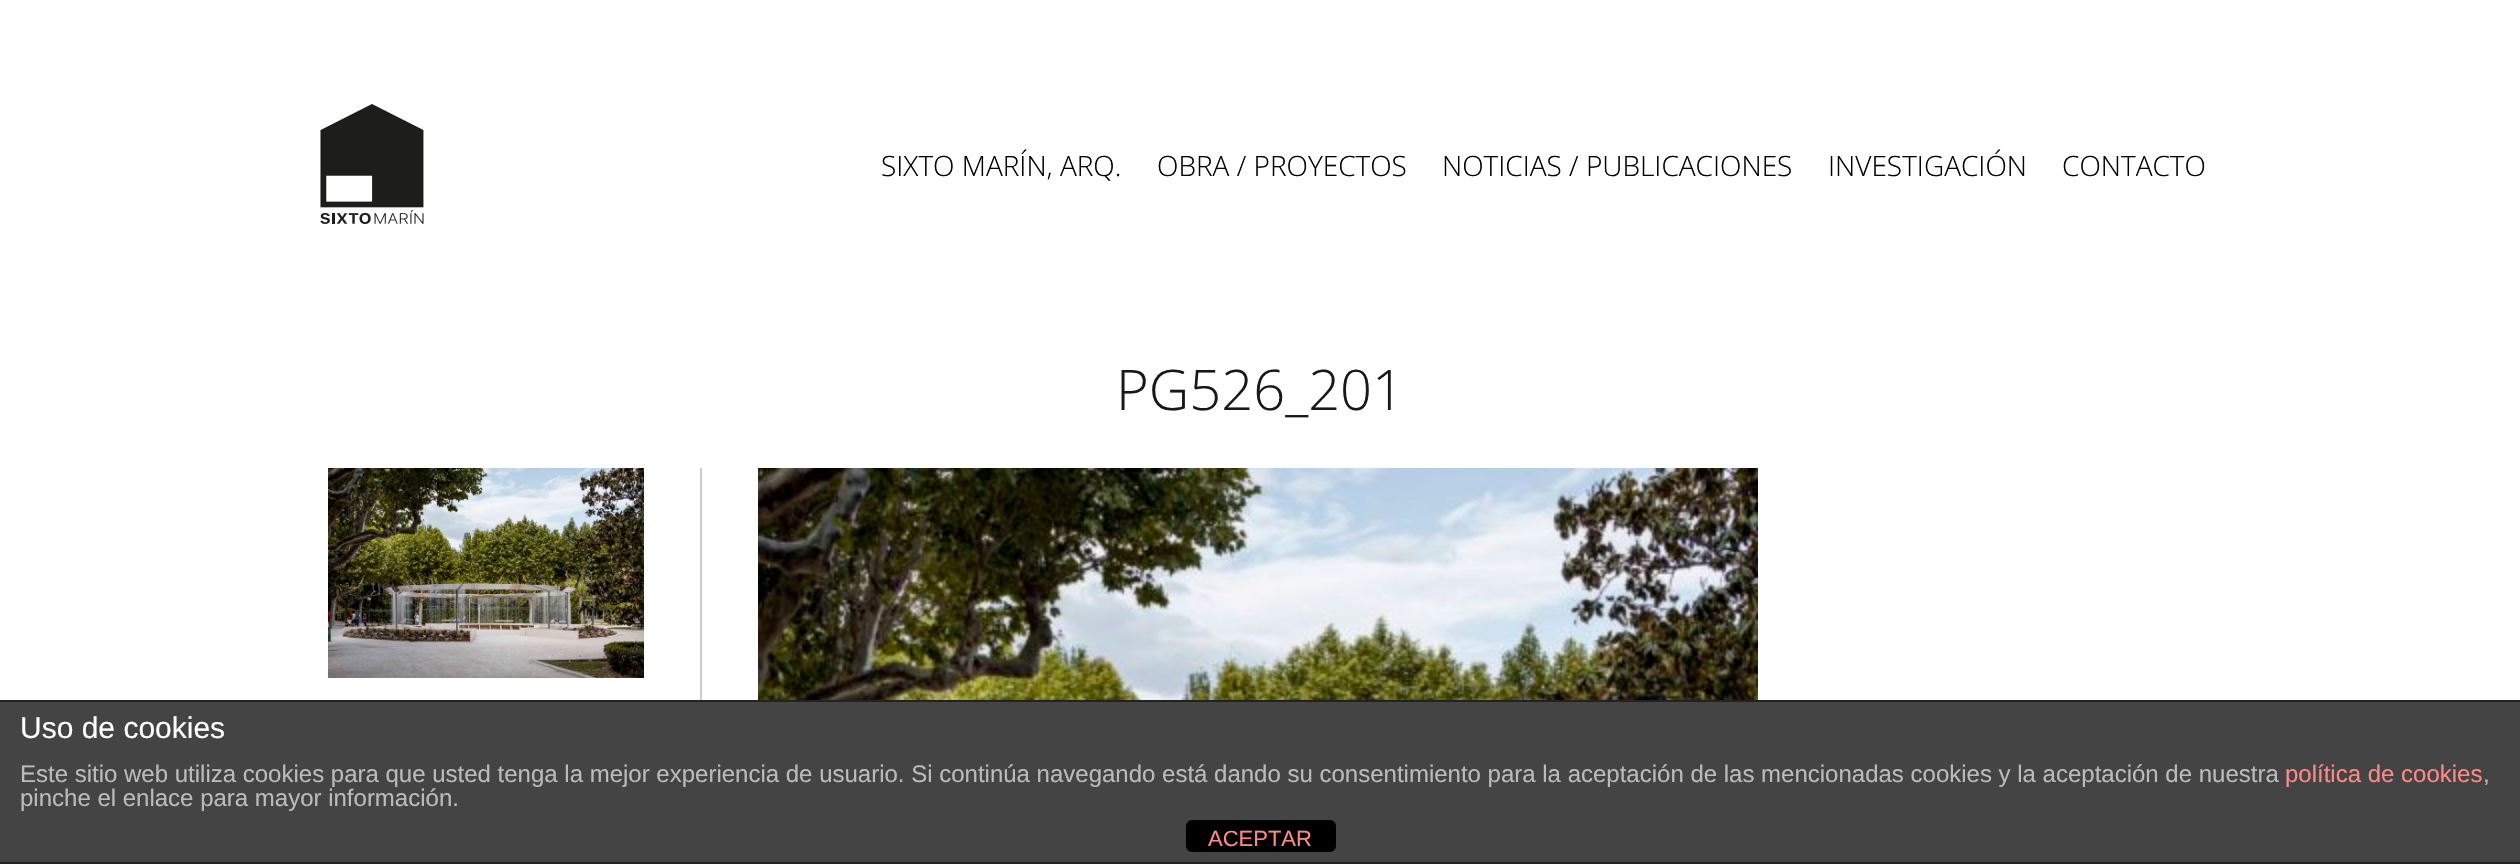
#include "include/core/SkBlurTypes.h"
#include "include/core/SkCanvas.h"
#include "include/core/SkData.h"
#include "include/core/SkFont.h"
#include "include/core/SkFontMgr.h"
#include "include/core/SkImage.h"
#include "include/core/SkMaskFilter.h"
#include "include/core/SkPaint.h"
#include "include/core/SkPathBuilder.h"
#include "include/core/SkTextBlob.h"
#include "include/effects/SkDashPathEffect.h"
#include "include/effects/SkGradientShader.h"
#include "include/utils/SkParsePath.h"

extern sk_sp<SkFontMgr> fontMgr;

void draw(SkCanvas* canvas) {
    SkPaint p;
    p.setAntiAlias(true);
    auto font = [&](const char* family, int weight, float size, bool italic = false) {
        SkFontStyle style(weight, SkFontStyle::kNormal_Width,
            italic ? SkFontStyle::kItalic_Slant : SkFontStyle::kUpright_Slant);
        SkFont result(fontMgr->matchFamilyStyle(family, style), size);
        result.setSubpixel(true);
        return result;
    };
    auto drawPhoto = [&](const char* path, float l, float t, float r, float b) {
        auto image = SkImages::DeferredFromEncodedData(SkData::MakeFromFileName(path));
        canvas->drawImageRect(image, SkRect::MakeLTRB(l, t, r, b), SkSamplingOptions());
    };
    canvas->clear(0xFFFFFFFF);
    drawPhoto("media/1.png", 320, 104, 424, 224);
    auto font1 = font("Open Sans", 300, 28);
    p.setColor(0xFF000000);
    {
        const struct { const char* s; float x, y; } items[] = {
            {"SIXTO MARÍN, ARQ.", 881, 176},
            {"OBRA / PROYECTOS", 1157, 176},
            {"NOTICIAS / PUBLICACIONES", 1442, 176},
            {"INVESTIGACIÓN", 1828, 176},
            {"CONTACTO", 2062, 176},
        };
        for (auto [s, x, y] : items) {
            canvas->drawString(s, x, y, font1, p);
        }
    }
    auto font2 = font("Open Sans", 300, 56);
    p.setColor(0xFF181818);
    canvas->drawString("PG526_201", 1116, 410, font2, p);
    drawPhoto("media/2.png", 328, 468, 644, 678);
    p.setColor(0xFFCCCCCC);
    canvas->drawRect(SkRect::MakeLTRB(700, 468, 702, 700), p);
    drawPhoto("media/3.png", 758, 468, 1758, 700);
    {
        const struct { float l, t, r, b; SkColor color; } items[] = {
            {0, 702, 2520, 862, 0xFF444444},
            {0, 700, 2520, 702, 0xFF222222},
            {0, 862, 2520, 864, 0xFF222222},
        };
        for (auto [l, t, r, b, color] : items) {
            p.setColor(color);
            canvas->drawRect(SkRect::MakeLTRB(l, t, r, b), p);
        }
    }
    auto font3 = font("Liberation Sans", 400, 30);
    p.setColor(0xFFFFFFFF);
    canvas->drawString("Uso de cookies", 20, 738, font3, p);
    auto font4 = font("Liberation Sans", 400, 24);
    p.setColor(0xFFBBBBBB);
    canvas->drawString("Este sitio web utiliza cookies para que usted tenga la mejor experiencia de usuario. Si continúa navegando está dando su consentimiento para la aceptación de las mencionadas cookies y la aceptación de nuestra", 20, 782, font4, p);
    p.setColor(0xFFFF8888);
    canvas->drawString("política de cookies", 2285, 782, font4, p);
    p.setColor(0xFFBBBBBB);
    canvas->drawString(",", 2483, 782, font4, p);
    canvas->drawString("pinche el enlace para mayor información.", 20, 806, font4, p);
    p.setColor(0xFF000000);
    canvas->drawRoundRect(SkRect::MakeLTRB(1186, 820, 1336, 852), 6, 6, p);
    auto font5 = font("Liberation Sans", 400, 22);
    p.setColor(0xFFFF8888);
    canvas->drawString("ACEPTAR", 1208, 846, font5, p);
}
